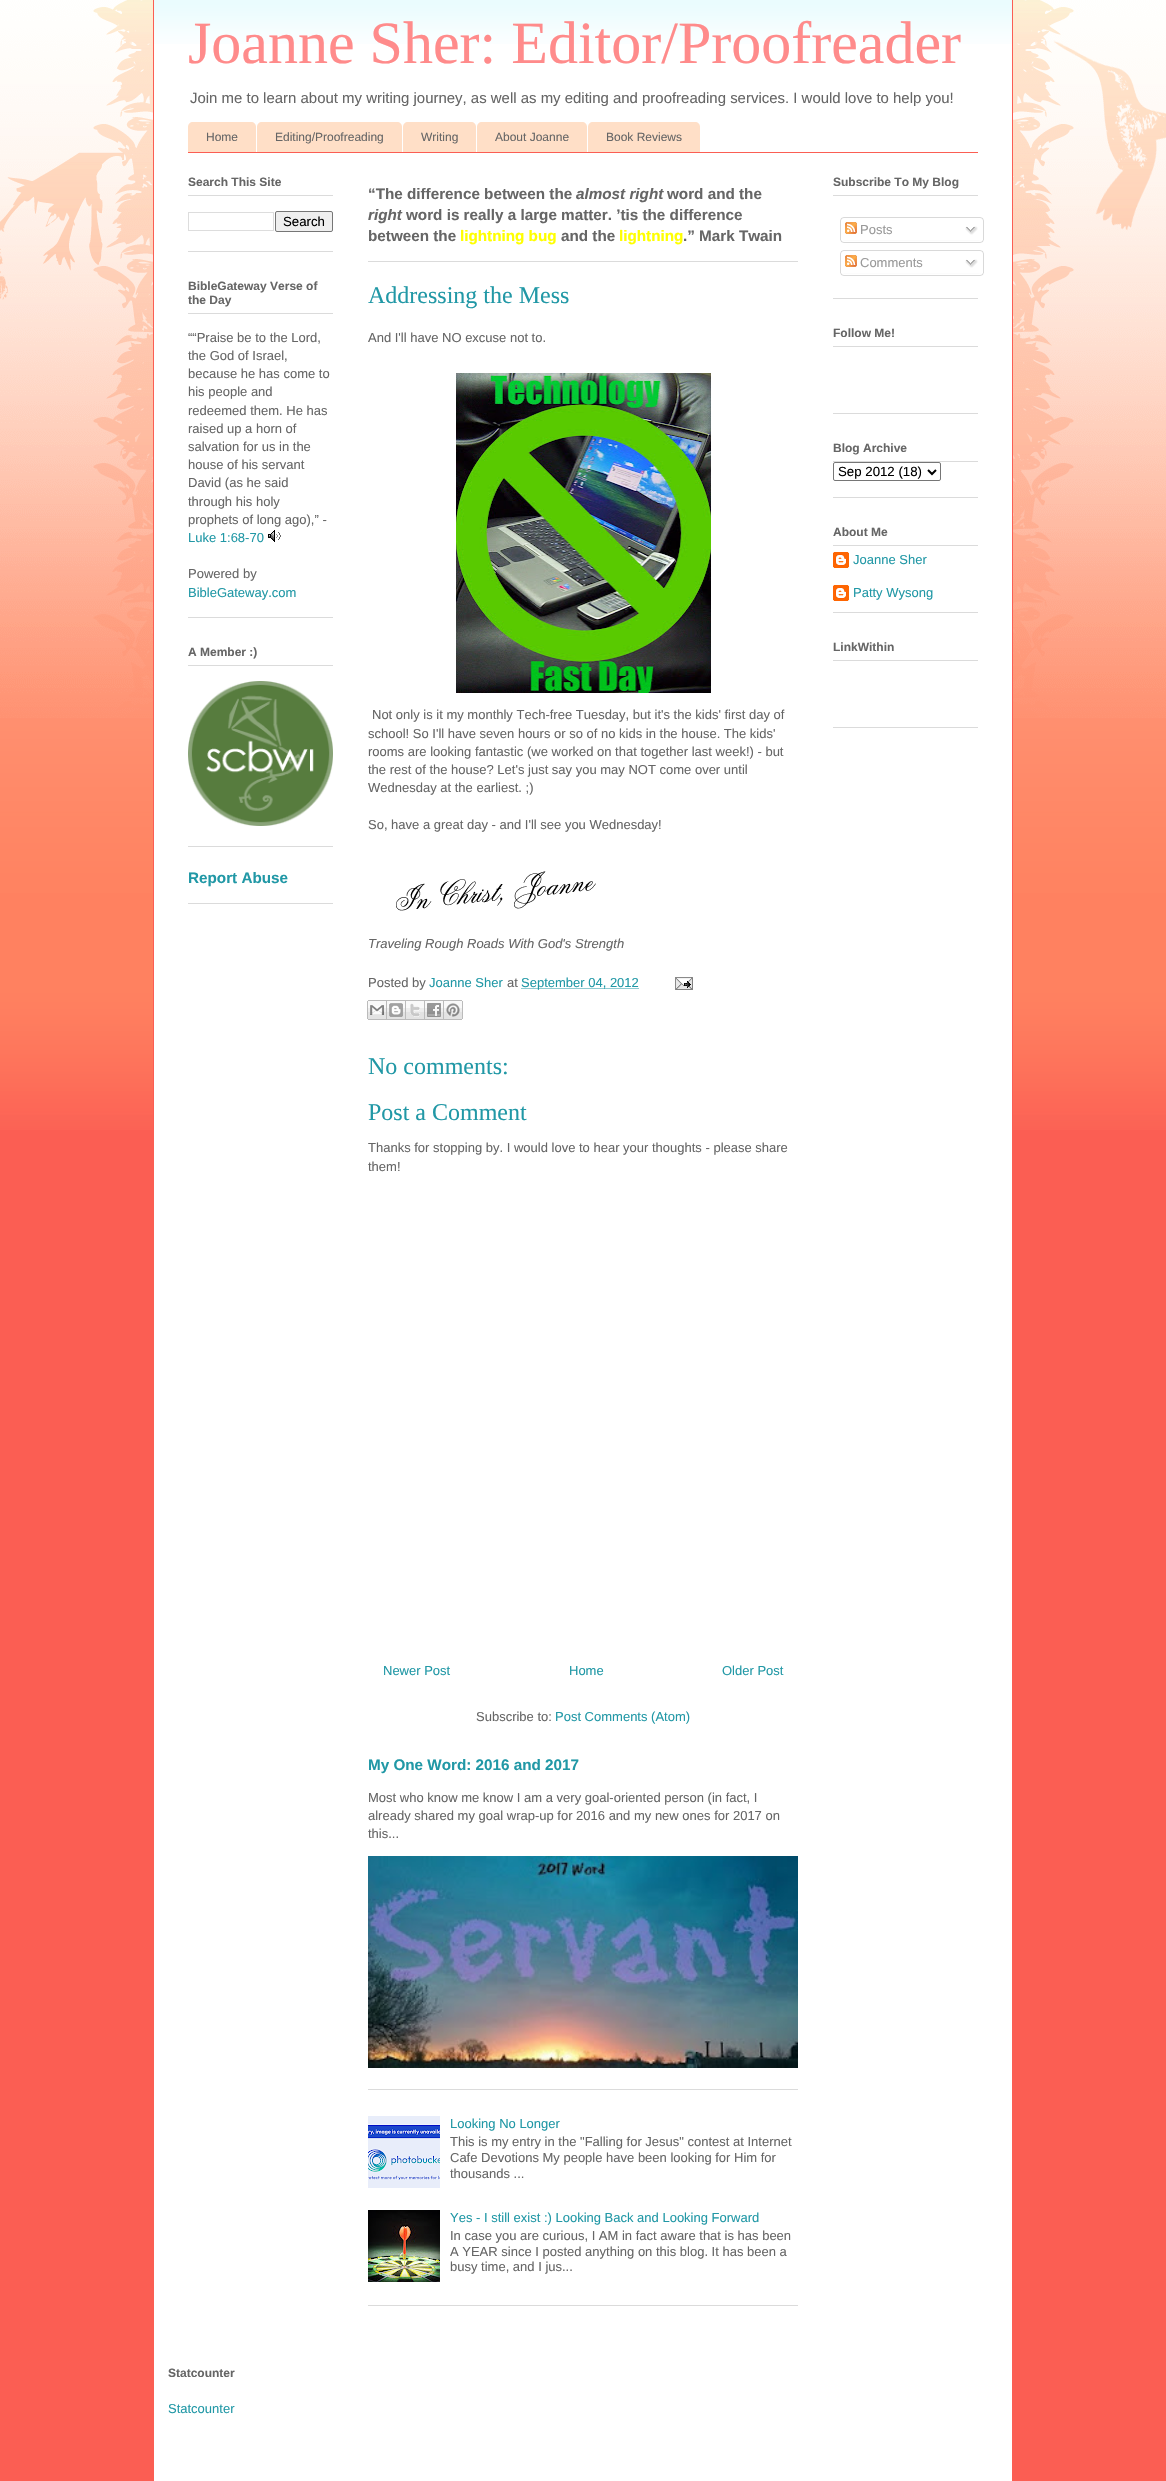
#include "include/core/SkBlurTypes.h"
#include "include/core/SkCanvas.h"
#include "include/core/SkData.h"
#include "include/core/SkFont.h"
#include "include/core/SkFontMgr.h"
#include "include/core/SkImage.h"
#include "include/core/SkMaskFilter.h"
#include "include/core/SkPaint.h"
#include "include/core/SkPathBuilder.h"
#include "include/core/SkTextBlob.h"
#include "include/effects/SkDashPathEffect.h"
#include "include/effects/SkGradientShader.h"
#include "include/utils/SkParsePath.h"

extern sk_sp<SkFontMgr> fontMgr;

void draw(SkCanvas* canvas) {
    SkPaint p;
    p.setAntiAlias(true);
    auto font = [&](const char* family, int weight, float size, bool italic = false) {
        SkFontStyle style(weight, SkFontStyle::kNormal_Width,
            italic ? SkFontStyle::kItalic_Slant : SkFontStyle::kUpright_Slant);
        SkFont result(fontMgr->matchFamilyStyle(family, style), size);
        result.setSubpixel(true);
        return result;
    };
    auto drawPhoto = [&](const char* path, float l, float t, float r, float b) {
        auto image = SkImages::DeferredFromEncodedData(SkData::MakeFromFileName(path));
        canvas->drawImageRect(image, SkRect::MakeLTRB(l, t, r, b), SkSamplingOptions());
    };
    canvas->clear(0xFFFB5E53);
    drawPhoto("media/1.png", 0, 0, 1166, 1130);
    drawPhoto("media/2.png", 0, 0, 153, 718);
    p.setColor(0xFFFFFFFF);
    canvas->drawRect(SkRect::MakeLTRB(154, 0, 1012, 2481), p);
    drawPhoto("media/3.png", 154, 0, 1012, 44);
    p.setColor(0xFFFB5E53);
    canvas->drawRect(SkRect::MakeLTRB(1012, 0, 1013, 1130), p);
    canvas->drawRect(SkRect::MakeLTRB(153, 0, 154, 1130), p);
    drawPhoto("media/4.png", 1013, 0, 1166, 718);
    auto font1 = font("Liberation Serif", 400, 60);
    p.setColor(0xFFFF8B8B);
    canvas->drawString("Joanne Sher: Editor/Proofreader", 188, 63, font1, p);
    auto font2 = font("Liberation Sans", 400, 14.95f);
    p.setColor(0xFF666666);
    canvas->drawString("Join me to learn about my writing journey, as well as my editing and proofreading services. I would love to help you!", 190, 103, font2, p);
    p.setColor(0xFFFB5E53);
    canvas->drawRect(SkRect::MakeLTRB(188, 152, 978, 153), p);
    p.setColor(0xFFFFDFC7);
    canvas->drawPath(SkPathBuilder().moveTo(193, 122).lineTo(251, 122).cubicTo(254, 122, 256, 124, 256, 127).lineTo(256, 152).lineTo(188, 152).lineTo(188, 127).cubicTo(188, 124, 190, 122, 193, 122).close().detach(), p);
    auto font3 = font("Liberation Sans", 400, 12);
    p.setColor(0xFF666666);
    canvas->drawString("Home", 206, 141, font3, p);
    p.setColor(0xFFFFDFC7);
    canvas->drawPath(SkPathBuilder().moveTo(262, 122).lineTo(397, 122).cubicTo(400, 122, 402, 124, 402, 127).lineTo(402, 152).lineTo(257, 152).lineTo(257, 127).cubicTo(257, 124, 259, 122, 262, 122).close().detach(), p);
    p.setColor(0xFF666666);
    canvas->drawString("Editing/Proofreading", 275, 141, font3, p);
    p.setColor(0xFFFFDFC7);
    canvas->drawPath(SkPathBuilder().moveTo(408, 122).lineTo(471, 122).cubicTo(474, 122, 476, 124, 476, 127).lineTo(476, 152).lineTo(403, 152).lineTo(403, 127).cubicTo(403, 124, 405, 122, 408, 122).close().detach(), p);
    p.setColor(0xFF666666);
    canvas->drawString("Writing", 421, 141, font3, p);
    p.setColor(0xFFFFDFC7);
    canvas->drawPath(SkPathBuilder().moveTo(482, 122).lineTo(582, 122).cubicTo(585, 122, 587, 124, 587, 127).lineTo(587, 152).lineTo(477, 152).lineTo(477, 127).cubicTo(477, 124, 479, 122, 482, 122).close().detach(), p);
    p.setColor(0xFF666666);
    canvas->drawString("About Joanne", 495, 141, font3, p);
    p.setColor(0xFFFFDFC7);
    canvas->drawPath(SkPathBuilder().moveTo(593, 122).lineTo(695, 122).cubicTo(698, 122, 700, 124, 700, 127).lineTo(700, 152).lineTo(588, 152).lineTo(588, 127).cubicTo(588, 124, 590, 122, 593, 122).close().detach(), p);
    p.setColor(0xFF666666);
    canvas->drawString("Book Reviews", 606, 141, font3, p);
    p.setColor(0xFFDBDBDB);
    canvas->drawRect(SkRect::MakeLTRB(188, 251, 333, 252), p);
    canvas->drawRect(SkRect::MakeLTRB(188, 195, 333, 196), p);
    auto font4 = font("Liberation Sans", 700, 12);
    p.setColor(0xFF666666);
    canvas->drawString("Search This Site", 188, 186, font4, p);
    p.setStyle(SkPaint::kStroke_Style);
    p.setStrokeWidth(1);
    p.setColor(0xFFDDDDDD);
    canvas->drawRect(SkRect::MakeLTRB(188.5f, 212.5f, 273.5f, 230.5f), p);
    p.setStyle(SkPaint::kFill_Style);
    p.setColor(0xFFEFEFEF);
    canvas->drawRoundRect(SkRect::MakeLTRB(275.5f, 211.5f, 332.5f, 231.5f), 1.5f, 1.5f, p);
    p.setStyle(SkPaint::kStroke_Style);
    p.setColor(0xFF767676);
    canvas->drawRoundRect(SkRect::MakeLTRB(275.5f, 211.5f, 332.5f, 231.5f), 1.5f, 1.5f, p);
    auto font5 = font("Liberation Sans", 400, 13.25f);
    p.setStyle(SkPaint::kFill_Style);
    p.setColor(0xFF000000);
    canvas->drawString("Search", 283, 226, font5, p);
    p.setColor(0xFFDBDBDB);
    canvas->drawRect(SkRect::MakeLTRB(188, 617, 333, 618), p);
    canvas->drawRect(SkRect::MakeLTRB(188, 313, 333, 314), p);
    p.setColor(0xFF666666);
    canvas->drawString("BibleGateway Verse of", 188, 290, font4, p);
    canvas->drawString("the Day", 188, 304, font4, p);
    auto font6 = font("Liberation Sans", 400, 13);
    {
        const struct { const char* s; float x, y; } items[] = {
            {"““Praise be to the Lord,", 188, 342},
            {"the God of Israel,", 188, 360},
            {"because he has come to", 188, 378},
            {"his people and", 188, 396},
            {"redeemed them. He has", 188, 415},
            {"raised up a horn of", 188, 433},
            {"salvation for us in the", 188, 451},
            {"house of his servant", 188, 469},
            {"David (as he said", 188, 487},
            {"through his holy", 188, 506},
            {"prophets of long ago),” -", 188, 524},
        };
        for (auto [s, x, y] : items) {
            canvas->drawString(s, x, y, font6, p);
        }
    }
    p.setColor(0xFF2198A6);
    canvas->drawString("Luke 1:68-70", 188, 542, font6, p);
    drawPhoto("media/5.png", 268, 530, 281, 542);
    p.setColor(0xFF666666);
    canvas->drawString("Powered by", 188, 578, font6, p);
    p.setColor(0xFF2198A6);
    canvas->drawString("BibleGateway.com", 188, 597, font6, p);
    p.setColor(0xFFDBDBDB);
    canvas->drawRect(SkRect::MakeLTRB(188, 846, 333, 847), p);
    canvas->drawRect(SkRect::MakeLTRB(188, 665, 333, 666), p);
    p.setColor(0xFF666666);
    canvas->drawString("A Member :)", 188, 656, font4, p);
    drawPhoto("media/6.png", 188, 681, 333, 826);
    p.setColor(0xFFDBDBDB);
    canvas->drawRect(SkRect::MakeLTRB(188, 903, 333, 904), p);
    auto font7 = font("Liberation Sans", 700, 15.25f);
    p.setColor(0xFF2198A6);
    canvas->drawString("Report Abuse", 188, 883, font7, p);
    p.setColor(0xFFDBDBDB);
    canvas->drawRect(SkRect::MakeLTRB(368, 261, 798, 262), p);
    p.setColor(0xFF666666);
    canvas->drawString("“The difference between the", 368, 199, font7, p);
    auto font8 = font("Liberation Sans", 700, 15.25f, true);
    canvas->drawString("almost right", 576, 199, font8, p);
    canvas->drawString("word and the", 667, 199, font7, p);
    canvas->drawString("right", 368, 220, font8, p);
    canvas->drawString("word is really a large matter. ’tis the difference", 406, 220, font7, p);
    canvas->drawString("between the", 368, 241, font7, p);
    p.setColor(0xFFFFFF00);
    canvas->drawString("lightning bug", 460, 241, font7, p);
    p.setColor(0xFF666666);
    canvas->drawString("and the", 561, 241, font7, p);
    p.setColor(0xFFFFFF00);
    canvas->drawString("lightning", 619, 241, font7, p);
    p.setColor(0xFF666666);
    canvas->drawString(".” Mark Twain", 683, 241, font7, p);
    auto font9 = font("Liberation Serif", 400, 24);
    p.setColor(0xFF2198A6);
    canvas->drawString("Addressing the Mess", 368, 303, font9, p);
    p.setColor(0xFF666666);
    canvas->drawString("And I'll have NO excuse not to.", 368, 342, font6, p);
    drawPhoto("media/7.png", 456, 373, 711, 693);
    {
        const struct { const char* s; float x, y; } items[] = {
            {"Not only is it my monthly Tech-free Tuesday, but it's the kids' first day of", 372, 719},
            {"school! So I'll have seven hours or so of no kids in the house. The kids'", 368, 738},
            {"rooms are looking fantastic (we worked on that together last week!) - but", 368, 756},
            {"the rest of the house? Let's just say you may NOT come over until", 368, 774},
            {"Wednesday at the earliest. ;)", 368, 792},
            {"So, have a great day - and I'll see you Wednesday!", 368, 829},
        };
        for (auto [s, x, y] : items) {
            canvas->drawString(s, x, y, font6, p);
        }
    }
    drawPhoto("media/8.png", 396, 871, 596, 911);
    auto font10 = font("Liberation Sans", 400, 13, true);
    canvas->drawString("Traveling Rough Roads With God's Strength", 368, 948, font10, p);
    canvas->drawString("Posted by", 368, 987, font6, p);
    p.setColor(0xFF2198A6);
    canvas->drawString("Joanne Sher", 429, 987, font6, p);
    p.setColor(0xFF666666);
    canvas->drawString("at", 507, 987, font6, p);
    p.setStyle(SkPaint::kStroke_Style);
    p.setColor(0xFF2198A6);
    p.setPathEffect(SkDashPathEffect::Make({{1, 1}}, 0));
    canvas->drawPath(SkPathBuilder().moveTo(521.5f, 988.5f).lineTo(639, 988.5f).detach(), p);
    p.setPathEffect(nullptr);
    p.setStyle(SkPaint::kFill_Style);
    canvas->drawString("September 04, 2012", 521, 987, font6, p);
    drawPhoto("media/9.png", 675, 977, 693, 990);
    drawPhoto("media/10.png", 367, 1000, 387, 1020);
    drawPhoto("media/11.png", 387, 1000, 406, 1020);
    drawPhoto("media/12.png", 406, 1000, 425, 1020);
    drawPhoto("media/13.png", 425, 1000, 444, 1020);
    drawPhoto("media/14.png", 444, 1000, 463, 1020);
    canvas->drawString("No comments:", 368, 1074, font9, p);
    canvas->drawString("Post a Comment", 368, 1120, font9, p);
    p.setColor(0xFF666666);
    canvas->drawString("Thanks for stopping by. I would love to hear your thoughts - please share", 368, 1152, font6, p);
    canvas->drawString("them!", 368, 1171, font6, p);
    p.setColor(0xFF2198A6);
    {
        const struct { const char* s; float x, y; } items[] = {
            {"Newer Post", 383, 1675},
            {"Home", 569, 1675},
            {"Older Post", 722, 1675},
        };
        for (auto [s, x, y] : items) {
            canvas->drawString(s, x, y, font6, p);
        }
    }
    p.setColor(0xFF666666);
    canvas->drawString("Subscribe to:", 476, 1721, font6, p);
    p.setColor(0xFF2198A6);
    canvas->drawString("Post Comments (Atom)", 555, 1721, font6, p);
    p.setColor(0xFFDBDBDB);
    canvas->drawRect(SkRect::MakeLTRB(368, 2089, 798, 2090), p);
    p.setColor(0xFF2198A6);
    canvas->drawString("My One Word: 2016 and 2017", 368, 1770, font7, p);
    p.setColor(0xFF666666);
    {
        const struct { const char* s; float x, y; } items[] = {
            {"Most who know me know I am a very goal-oriented person (in fact, I", 368, 1802},
            {"already shared my goal wrap-up for 2016 and my new ones for 2017 on", 368, 1820},
            {"this...", 368, 1838},
        };
        for (auto [s, x, y] : items) {
            canvas->drawString(s, x, y, font6, p);
        }
    }
    drawPhoto("media/15.png", 368, 1856, 798, 2068);
    p.setColor(0xFFDBDBDB);
    canvas->drawRect(SkRect::MakeLTRB(368, 2305, 798, 2306), p);
    drawPhoto("media/16.png", 368, 2116, 440, 2188);
    p.setColor(0xFF2198A6);
    canvas->drawString("Looking No Longer", 450, 2128, font6, p);
    p.setColor(0xFF666666);
    {
        const struct { const char* s; float x, y; } items[] = {
            {"This is my entry in the \"Falling for Jesus\" contest at Internet", 450, 2146},
            {"Cafe Devotions My people have been looking for Him for", 450, 2162},
            {"thousands ...", 450, 2178},
        };
        for (auto [s, x, y] : items) {
            canvas->drawString(s, x, y, font6, p);
        }
    }
    drawPhoto("media/17.png", 368, 2210, 440, 2282);
    p.setColor(0xFF2198A6);
    canvas->drawString("Yes - I still exist :) Looking Back and Looking Forward", 450, 2222, font6, p);
    p.setColor(0xFF666666);
    {
        const struct { const char* s; float x, y; } items[] = {
            {"In case you are curious, I AM in fact aware that is has been", 450, 2240},
            {"A YEAR since I posted anything on this blog. It has been a", 450, 2256},
            {"busy time, and I jus...", 450, 2271},
        };
        for (auto [s, x, y] : items) {
            canvas->drawString(s, x, y, font6, p);
        }
    }
    p.setColor(0xFFDBDBDB);
    canvas->drawRect(SkRect::MakeLTRB(833, 298, 978, 299), p);
    canvas->drawRect(SkRect::MakeLTRB(833, 195, 978, 196), p);
    p.setColor(0xFF666666);
    canvas->drawString("Subscribe To My Blog", 833, 186, font4, p);
    drawPhoto("media/18.png", 840, 217, 984, 240);
    drawPhoto("media/19.png", 845, 222, 857, 234);
    p.setColor(0xFF999999);
    canvas->drawString("Posts", 860, 234, font6, p);
    drawPhoto("media/20.png", 965, 226, 978, 235);
    drawPhoto("media/21.png", 840, 240, 984, 243);
    drawPhoto("media/18.png", 840, 250, 984, 273);
    drawPhoto("media/19.png", 845, 255, 857, 267);
    canvas->drawString("Comments", 860, 267, font6, p);
    drawPhoto("media/20.png", 965, 259, 978, 268);
    drawPhoto("media/21.png", 840, 273, 984, 276);
    p.setColor(0xFFDBDBDB);
    canvas->drawRect(SkRect::MakeLTRB(833, 413, 978, 414), p);
    canvas->drawRect(SkRect::MakeLTRB(833, 346, 978, 347), p);
    p.setColor(0xFF666666);
    canvas->drawString("Follow Me!", 833, 337, font4, p);
    p.setColor(0xFFDBDBDB);
    canvas->drawRect(SkRect::MakeLTRB(833, 497, 978, 498), p);
    canvas->drawRect(SkRect::MakeLTRB(833, 461, 978, 462), p);
    p.setColor(0xFF666666);
    canvas->drawString("Blog Archive", 833, 452, font4, p);
    p.setStyle(SkPaint::kStroke_Style);
    p.setColor(0xFF767676);
    canvas->drawRoundRect(SkRect::MakeLTRB(833.5f, 462.5f, 940.5f, 480.5f), 1.5f, 1.5f, p);
    p.setStrokeWidth(2);
    p.setColor(0xFF000000);
    canvas->drawPath(SkPathBuilder().moveTo(928, 470).lineTo(932, 474).lineTo(936, 470).detach(), p);
    p.setStyle(SkPaint::kFill_Style);
    canvas->drawString("Sep 2012 (18)", 838, 476, font5, p);
    p.setColor(0xFFDBDBDB);
    canvas->drawRect(SkRect::MakeLTRB(833, 612, 978, 613), p);
    canvas->drawRect(SkRect::MakeLTRB(833, 545, 978, 546), p);
    p.setColor(0xFF666666);
    canvas->drawString("About Me", 833, 536, font4, p);
    drawPhoto("media/22.png", 833, 552, 849, 568);
    p.setColor(0xFF2198A6);
    canvas->drawString("Joanne Sher", 853, 564, font6, p);
    drawPhoto("media/22.png", 833, 585, 849, 601);
    canvas->drawString("Patty Wysong", 853, 597, font6, p);
    p.setColor(0xFFDBDBDB);
    canvas->drawRect(SkRect::MakeLTRB(833, 727, 978, 728), p);
    canvas->drawRect(SkRect::MakeLTRB(833, 660, 978, 661), p);
    p.setColor(0xFF666666);
    canvas->drawString("LinkWithin", 833, 651, font4, p);
    canvas->drawString("Statcounter", 168, 2377, font4, p);
    p.setColor(0xFF2198A6);
    canvas->drawString("Statcounter", 168, 2413, font6, p);
}
